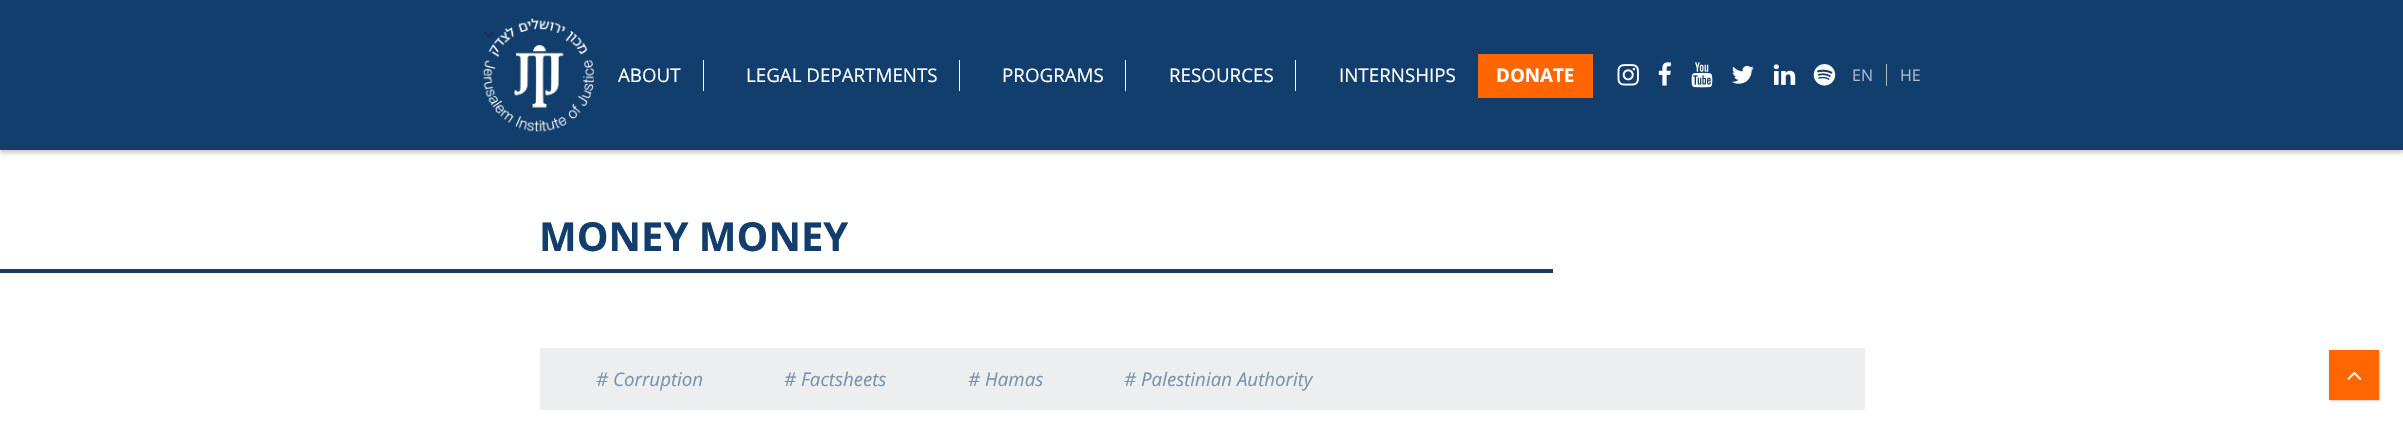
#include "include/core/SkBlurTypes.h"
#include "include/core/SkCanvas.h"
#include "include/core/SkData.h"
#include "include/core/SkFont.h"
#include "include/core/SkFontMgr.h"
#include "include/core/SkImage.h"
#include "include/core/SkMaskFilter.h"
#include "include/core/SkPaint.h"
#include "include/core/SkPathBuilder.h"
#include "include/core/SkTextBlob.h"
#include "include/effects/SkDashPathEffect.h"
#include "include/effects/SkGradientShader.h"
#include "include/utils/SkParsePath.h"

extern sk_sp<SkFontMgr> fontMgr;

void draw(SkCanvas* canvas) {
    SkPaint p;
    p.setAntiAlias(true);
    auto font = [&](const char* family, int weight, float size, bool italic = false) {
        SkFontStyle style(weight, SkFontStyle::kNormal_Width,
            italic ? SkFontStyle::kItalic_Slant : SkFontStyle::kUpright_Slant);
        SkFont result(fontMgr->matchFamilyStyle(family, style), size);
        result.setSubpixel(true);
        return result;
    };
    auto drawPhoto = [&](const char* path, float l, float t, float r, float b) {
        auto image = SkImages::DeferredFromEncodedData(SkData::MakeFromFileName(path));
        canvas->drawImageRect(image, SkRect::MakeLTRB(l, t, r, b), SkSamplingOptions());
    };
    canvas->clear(0xFFFFFFFF);
    p.setColor(0x33000000);
    p.setMaskFilter(SkMaskFilter::MakeBlur(kNormal_SkBlurStyle, 2));
    canvas->drawRect(SkRect::MakeLTRB(0, 3, 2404, 153), p);
    p.setMaskFilter(nullptr);
    p.setColor(0xFF113E6C);
    canvas->drawRect(SkRect::MakeLTRB(0, 0, 2403, 150), p);
    drawPhoto("media/1.png", 483, 18, 594, 132);
    auto font1 = font("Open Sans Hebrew", 400, 18.75f);
    p.setColor(0xFFFFFFFF);
    canvas->drawString("ABOUT", 618, 82, font1, p);
    canvas->drawRect(SkRect::MakeLTRB(703, 60, 704, 91), p);
    drawPhoto("media/2.png", 484, 32, 494, 37);
    canvas->drawString("LEGAL DEPARTMENTS", 746, 82, font1, p);
    canvas->drawRect(SkRect::MakeLTRB(959, 60, 960, 91), p);
    drawPhoto("media/3.png", 484, 32, 494, 36);
    canvas->drawString("PROGRAMS", 1002, 82, font1, p);
    canvas->drawRect(SkRect::MakeLTRB(1125, 60, 1126, 91), p);
    canvas->drawString("RESOURCES", 1169, 82, font1, p);
    canvas->drawRect(SkRect::MakeLTRB(1295, 60, 1296, 91), p);
    canvas->drawString("INTERNSHIPS", 1339, 82, font1, p);
    p.setColor(0xFFFF6600);
    canvas->drawRect(SkRect::MakeLTRB(1478, 54, 1593, 98), p);
    auto font2 = font("Open Sans Hebrew", 700, 18.75f);
    p.setColor(0xFFFFFFFF);
    canvas->drawString("DONATE", 1496, 82, font2, p);
    drawPhoto("media/4.png", 1617, 64, 1639, 86);
    drawPhoto("media/5.png", 1658, 62, 1671, 86);
    drawPhoto("media/6.png", 1691, 62, 1713, 88);
    drawPhoto("media/7.png", 1732, 65, 1754, 84);
    drawPhoto("media/8.png", 1773, 64, 1796, 85);
    drawPhoto("media/9.png", 1813, 64, 1836, 86);
    auto font3 = font("Open Sans Hebrew", 400, 16);
    p.setColor(0xFFABBAC9);
    canvas->drawString("EN", 1852, 81, font3, p);
    canvas->drawRect(SkRect::MakeLTRB(1886, 64, 1887, 86), p);
    canvas->drawString("HE", 1900, 81, font3, p);
    auto font4 = font("Open Sans Hebrew", 700, 40);
    p.setColor(0xFF113E6C);
    canvas->drawString("MONEY MONEY", 539, 251, font4, p);
    canvas->drawRect(SkRect::MakeLTRB(0, 269, 1553, 273), p);
    p.setColor(0xFFECEEEF);
    canvas->drawRect(SkRect::MakeLTRB(540, 348, 1865, 410), p);
    auto font5 = font("Open Sans Hebrew", 400, 18.75f, true);
    p.setColor(0xFF7A93AF);
    {
        const struct { const char* s; float x, y; } items[] = {
            {"# Corruption", 596, 386},
            {"# Factsheets", 784, 386},
            {"# Hamas", 968, 386},
            {"# Palestinian Authority", 1124, 386},
        };
        for (auto [s, x, y] : items) {
            canvas->drawString(s, x, y, font5, p);
        }
    }
    p.setColor(0x33000000);
    p.setMaskFilter(SkMaskFilter::MakeBlur(kNormal_SkBlurStyle, 1));
    canvas->drawRect(SkRect::MakeLTRB(2330, 351, 2380, 401), p);
    p.setMaskFilter(nullptr);
    p.setColor(0xFFFF6600);
    canvas->drawRect(SkRect::MakeLTRB(2329, 350, 2379, 400), p);
    drawPhoto("media/10.png", 2347, 371, 2362, 380);
}
